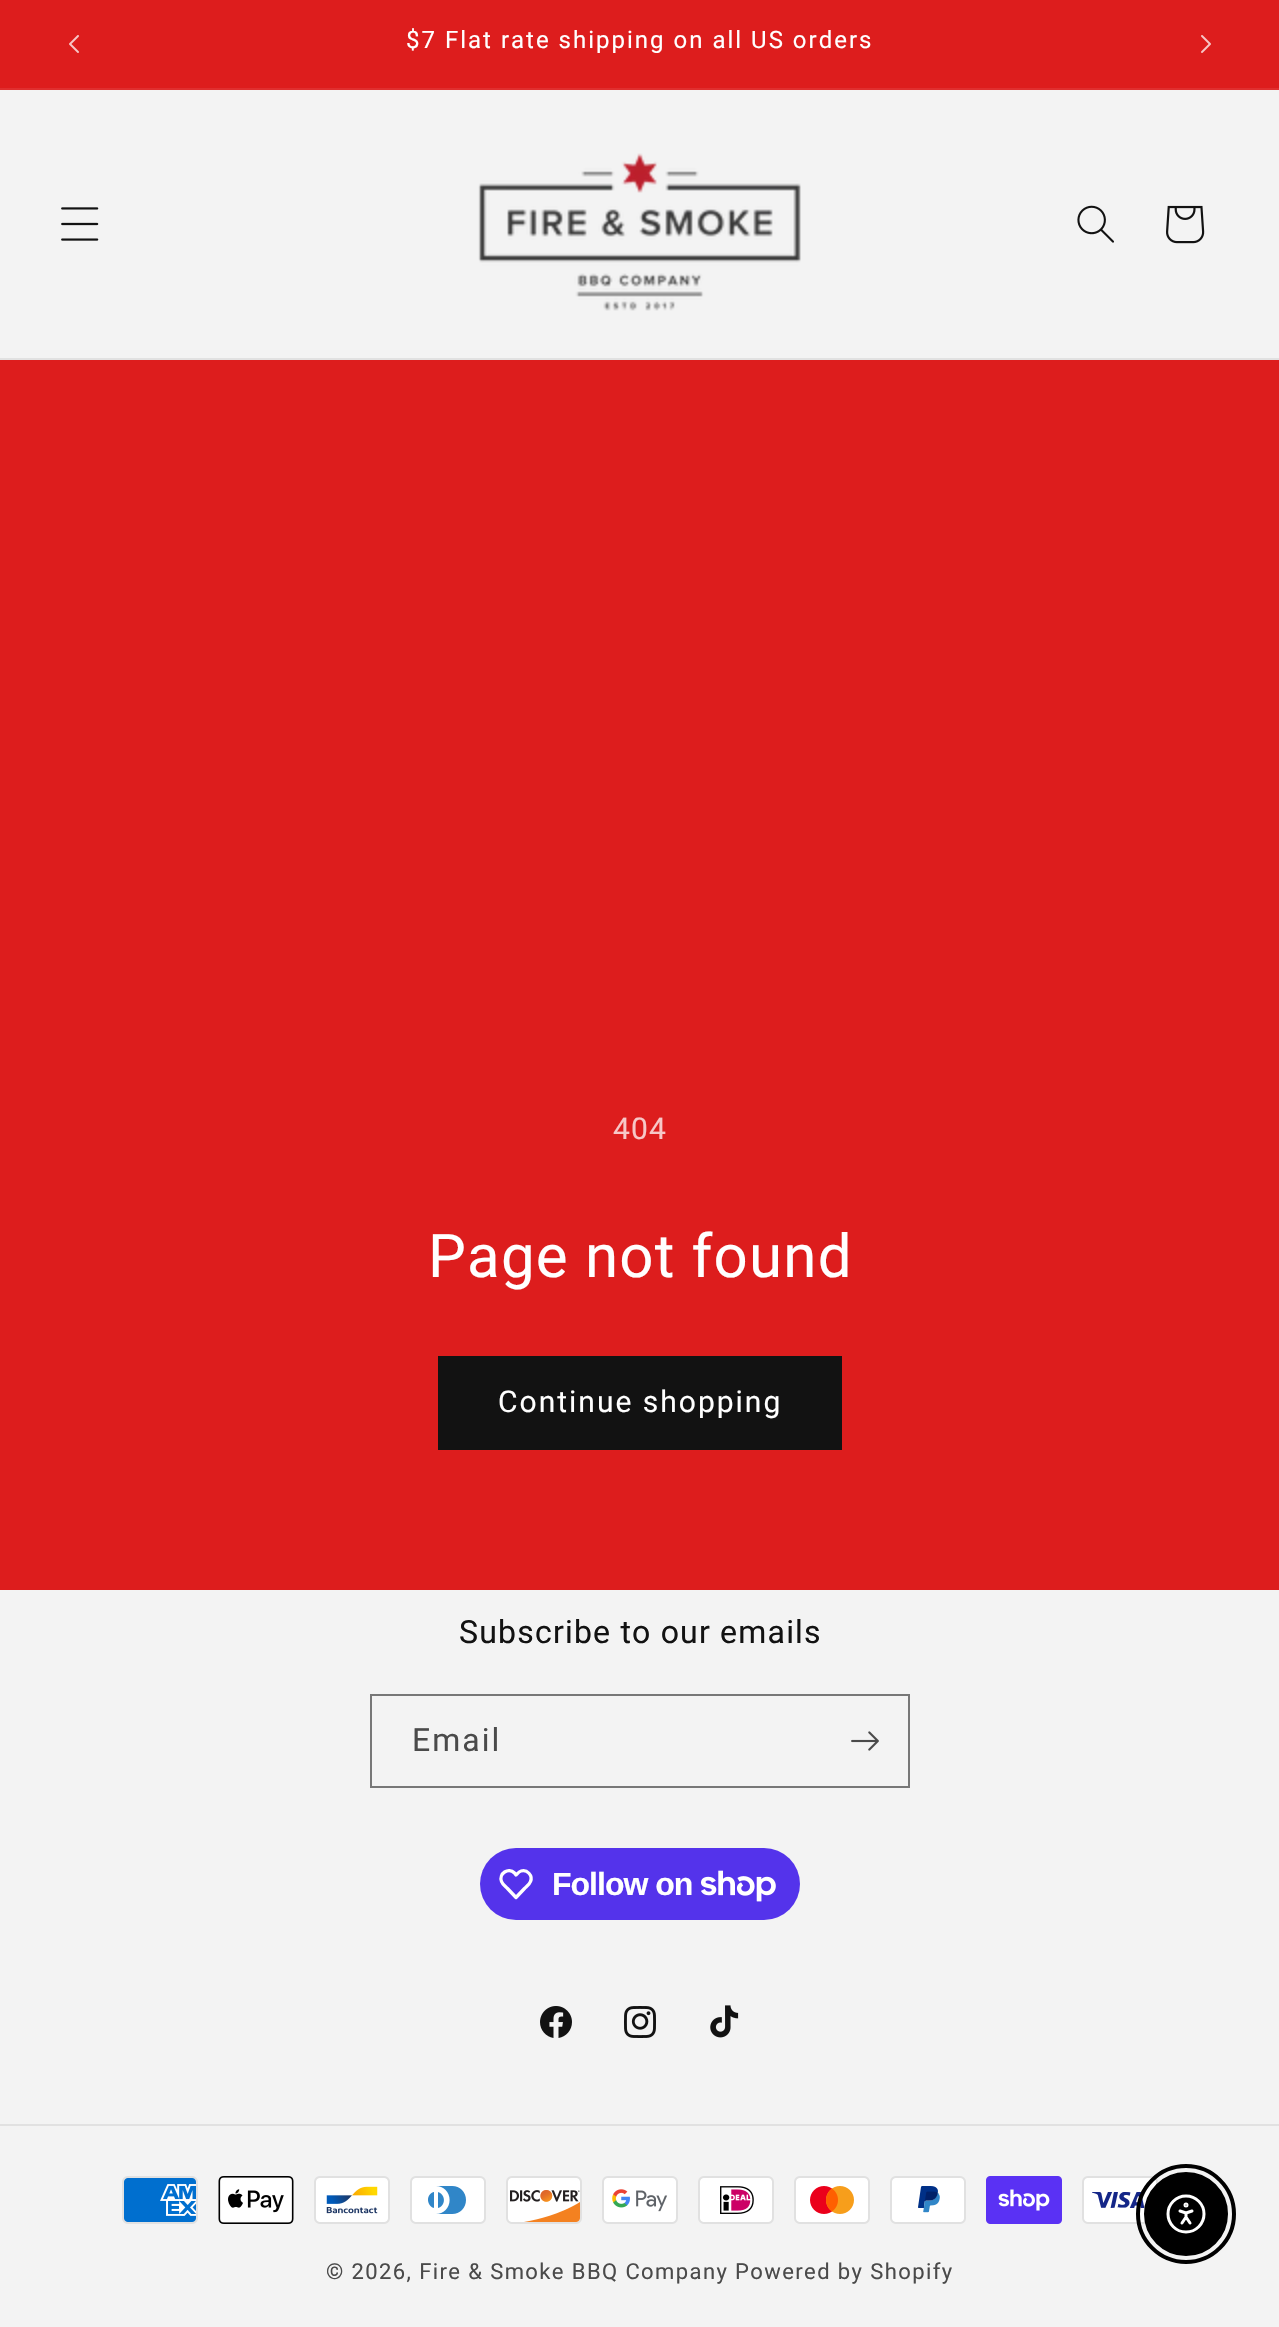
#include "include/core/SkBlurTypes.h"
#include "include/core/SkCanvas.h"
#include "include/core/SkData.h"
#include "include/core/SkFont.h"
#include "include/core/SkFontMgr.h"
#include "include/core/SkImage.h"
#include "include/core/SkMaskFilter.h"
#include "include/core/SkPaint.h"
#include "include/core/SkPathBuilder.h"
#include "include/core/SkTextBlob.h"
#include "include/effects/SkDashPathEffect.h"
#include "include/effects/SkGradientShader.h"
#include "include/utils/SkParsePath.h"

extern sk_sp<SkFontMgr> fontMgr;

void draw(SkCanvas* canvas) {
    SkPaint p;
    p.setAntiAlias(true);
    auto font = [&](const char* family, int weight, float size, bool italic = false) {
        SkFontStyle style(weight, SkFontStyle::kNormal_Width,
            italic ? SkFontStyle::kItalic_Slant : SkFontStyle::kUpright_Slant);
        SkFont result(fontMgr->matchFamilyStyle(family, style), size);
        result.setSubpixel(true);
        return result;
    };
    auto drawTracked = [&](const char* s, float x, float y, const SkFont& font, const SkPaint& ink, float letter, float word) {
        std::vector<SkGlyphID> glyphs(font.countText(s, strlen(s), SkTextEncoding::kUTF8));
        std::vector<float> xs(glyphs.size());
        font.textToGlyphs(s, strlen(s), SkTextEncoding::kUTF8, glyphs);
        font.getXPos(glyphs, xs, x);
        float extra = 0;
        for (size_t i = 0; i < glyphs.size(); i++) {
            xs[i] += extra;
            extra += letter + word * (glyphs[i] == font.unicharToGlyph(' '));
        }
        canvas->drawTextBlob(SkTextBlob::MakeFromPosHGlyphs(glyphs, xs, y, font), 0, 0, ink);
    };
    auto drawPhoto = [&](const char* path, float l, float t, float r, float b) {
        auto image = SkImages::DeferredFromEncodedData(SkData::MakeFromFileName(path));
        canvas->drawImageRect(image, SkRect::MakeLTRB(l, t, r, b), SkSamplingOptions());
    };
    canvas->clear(0xFFDD1D1D);
    p.setColor(0xFFE02F2F);
    canvas->drawRect(SkRect::MakeLTRB(0, 88, 1279, 90), p);
    drawPhoto("media/1.png", 69, 35, 79, 53);
    auto font1 = font("Roboto", 400, 24);
    p.setColor(0xFFFFFFFF);
    drawTracked("$7 Flat rate shipping on all US orders", 406, 48, font1, p, 2, 0);
    drawPhoto("media/2.png", 1201, 35, 1211, 53);
    p.setColor(0xFFF3F3F3);
    canvas->drawRect(SkRect::MakeLTRB(0, 90, 1279, 358), p);
    p.setColor(0xFFE1E1E1);
    canvas->drawRect(SkRect::MakeLTRB(0, 358, 1279, 360), p);
    drawPhoto("media/3.png", 61, 207, 99, 241);
    drawPhoto("media/4.png", 478, 153, 801, 311);
    drawPhoto("media/5.png", 1077, 205, 1114, 243);
    drawPhoto("media/6.png", 1166, 205, 1205, 244);
    auto font2 = font("Roboto", 400, 30);
    p.setColor(0xFFF7C7C7);
    drawTracked("404", 613, 1139, font2, p, 1.2f, 0);
    auto font3 = font("Roboto", 400, 60);
    p.setColor(0xFFFFFFFF);
    drawTracked("Page not found", 428, 1277, font3, p, 1.2f, 0);
    p.setColor(0xFF121212);
    canvas->drawRect(SkRect::MakeLTRB(438, 1356, 842, 1450), p);
    p.setColor(0xFFFFFFFF);
    drawTracked("Continue shopping", 498, 1412, font2, p, 2, 0);
    p.setColor(0xFFF3F3F3);
    canvas->drawRect(SkRect::MakeLTRB(0, 1590, 1279, 2327), p);
    auto font4 = font("Roboto", 400, 32);
    p.setColor(0xFF121212);
    drawTracked("Subscribe to our emails", 459, 1643, font4, p, 1.2f, 0);
    p.setStyle(SkPaint::kStroke_Style);
    p.setStrokeWidth(2);
    p.setColor(0xFF777777);
    canvas->drawRect(SkRect::MakeLTRB(371, 1695, 909, 1787), p);
    p.setStyle(SkPaint::kFill_Style);
    p.setColor(0xFF4A4A4A);
    drawTracked("Email", 412, 1751, font4, p, 2, 0);
    drawPhoto("media/7.png", 851, 1731, 879, 1751);
    p.setColor(0xFF5433EB);
    canvas->drawRoundRect(SkRect::MakeLTRB(480, 1848, 800, 1920), 36, 36, p);
    p.setStyle(SkPaint::kStroke_Style);
    p.setStrokeWidth(3.3f);
    p.setStrokeJoin(SkPaint::kRound_Join);
    p.setColor(0xFFFFFFFF);
    canvas->drawPath(SkPathBuilder().moveTo(514.5f, 1873).lineTo(516, 1875).cubicTo(517.5f, 1873.5f, 519, 1871.5f, 521, 1871).cubicTo(527, 1869, 533, 1875.5f, 530.5f, 1881.5f).cubicTo(529.5f, 1884.5f, 526.5f, 1886.5f, 524.5f, 1888.5f).lineTo(516, 1897.5f).lineTo(507.5f, 1888.5f).cubicTo(505.5f, 1886.5f, 502.5f, 1884.5f, 501.5f, 1881.5f).cubicTo(498.5f, 1873.5f, 508.5f, 1867, 514.5f, 1873).close().detach(), p);
    auto font5 = font("Liberation Sans", 700, 32);
    p.setStyle(SkPaint::kFill_Style);
    drawTracked("Follow on", 552, 1895, font5, p, -1, 0);
    drawPhoto("media/8.png", 701, 1870, 776, 1902);
    drawPhoto("media/9.png", 540, 2006, 572, 2038);
    drawPhoto("media/10.png", 624, 2006, 656, 2038);
    drawPhoto("media/11.png", 710, 2005, 739, 2038);
    p.setColor(0xFFE1E1E1);
    canvas->drawRect(SkRect::MakeLTRB(0, 2124, 1279, 2126), p);
    drawPhoto("media/12.png", 122, 2176, 198, 2224);
    drawPhoto("media/13.png", 218, 2176, 294, 2224);
    drawPhoto("media/14.png", 314, 2176, 390, 2224);
    drawPhoto("media/15.png", 410, 2176, 486, 2224);
    drawPhoto("media/16.png", 506, 2176, 582, 2224);
    drawPhoto("media/17.png", 602, 2176, 678, 2224);
    drawPhoto("media/18.png", 698, 2176, 774, 2224);
    drawPhoto("media/19.png", 794, 2176, 870, 2224);
    drawPhoto("media/20.png", 890, 2176, 966, 2224);
    drawPhoto("media/21.png", 986, 2176, 1062, 2224);
    drawPhoto("media/22.png", 1082, 2176, 1158, 2224);
    auto font6 = font("Roboto", 400, 22);
    p.setColor(0xFF4A4A4A);
    drawTracked("© 2026, Fire & Smoke BBQ Company", 326, 2279, font6, p, 1.4f, 0);
    drawTracked("Powered by Shopify", 735, 2279, font6, p, 1.4f, 0);
    p.setStyle(SkPaint::kStroke_Style);
    p.setStrokeWidth(4);
    p.setStrokeJoin(SkPaint::kMiter_Join);
    p.setColor(0xFF000000);
    canvas->drawCircle(1186, 2214, 48, p);
    p.setStyle(SkPaint::kFill_Style);
    canvas->drawCircle(1186, 2214, 41, p);
    p.setStyle(SkPaint::kStroke_Style);
    p.setStrokeWidth(2);
    canvas->drawCircle(1186, 2214, 41, p);
    p.setStrokeWidth(3);
    p.setColor(0xFFFFFFFF);
    canvas->drawCircle(1186, 2214, 18, p);
    canvas->drawCircle(1186, 2205, 1, p);
    p.setStrokeCap(SkPaint::kRound_Cap);
    p.setStrokeJoin(SkPaint::kRound_Join);
    canvas->drawPath(SkPathBuilder().moveTo(1182, 2223).lineTo(1186, 2217).lineTo(1190, 2223).moveTo(1186, 2217).lineTo(1186, 2213).lineTo(1192, 2211).moveTo(1180, 2211).lineTo(1186, 2213).detach(), p);
}
